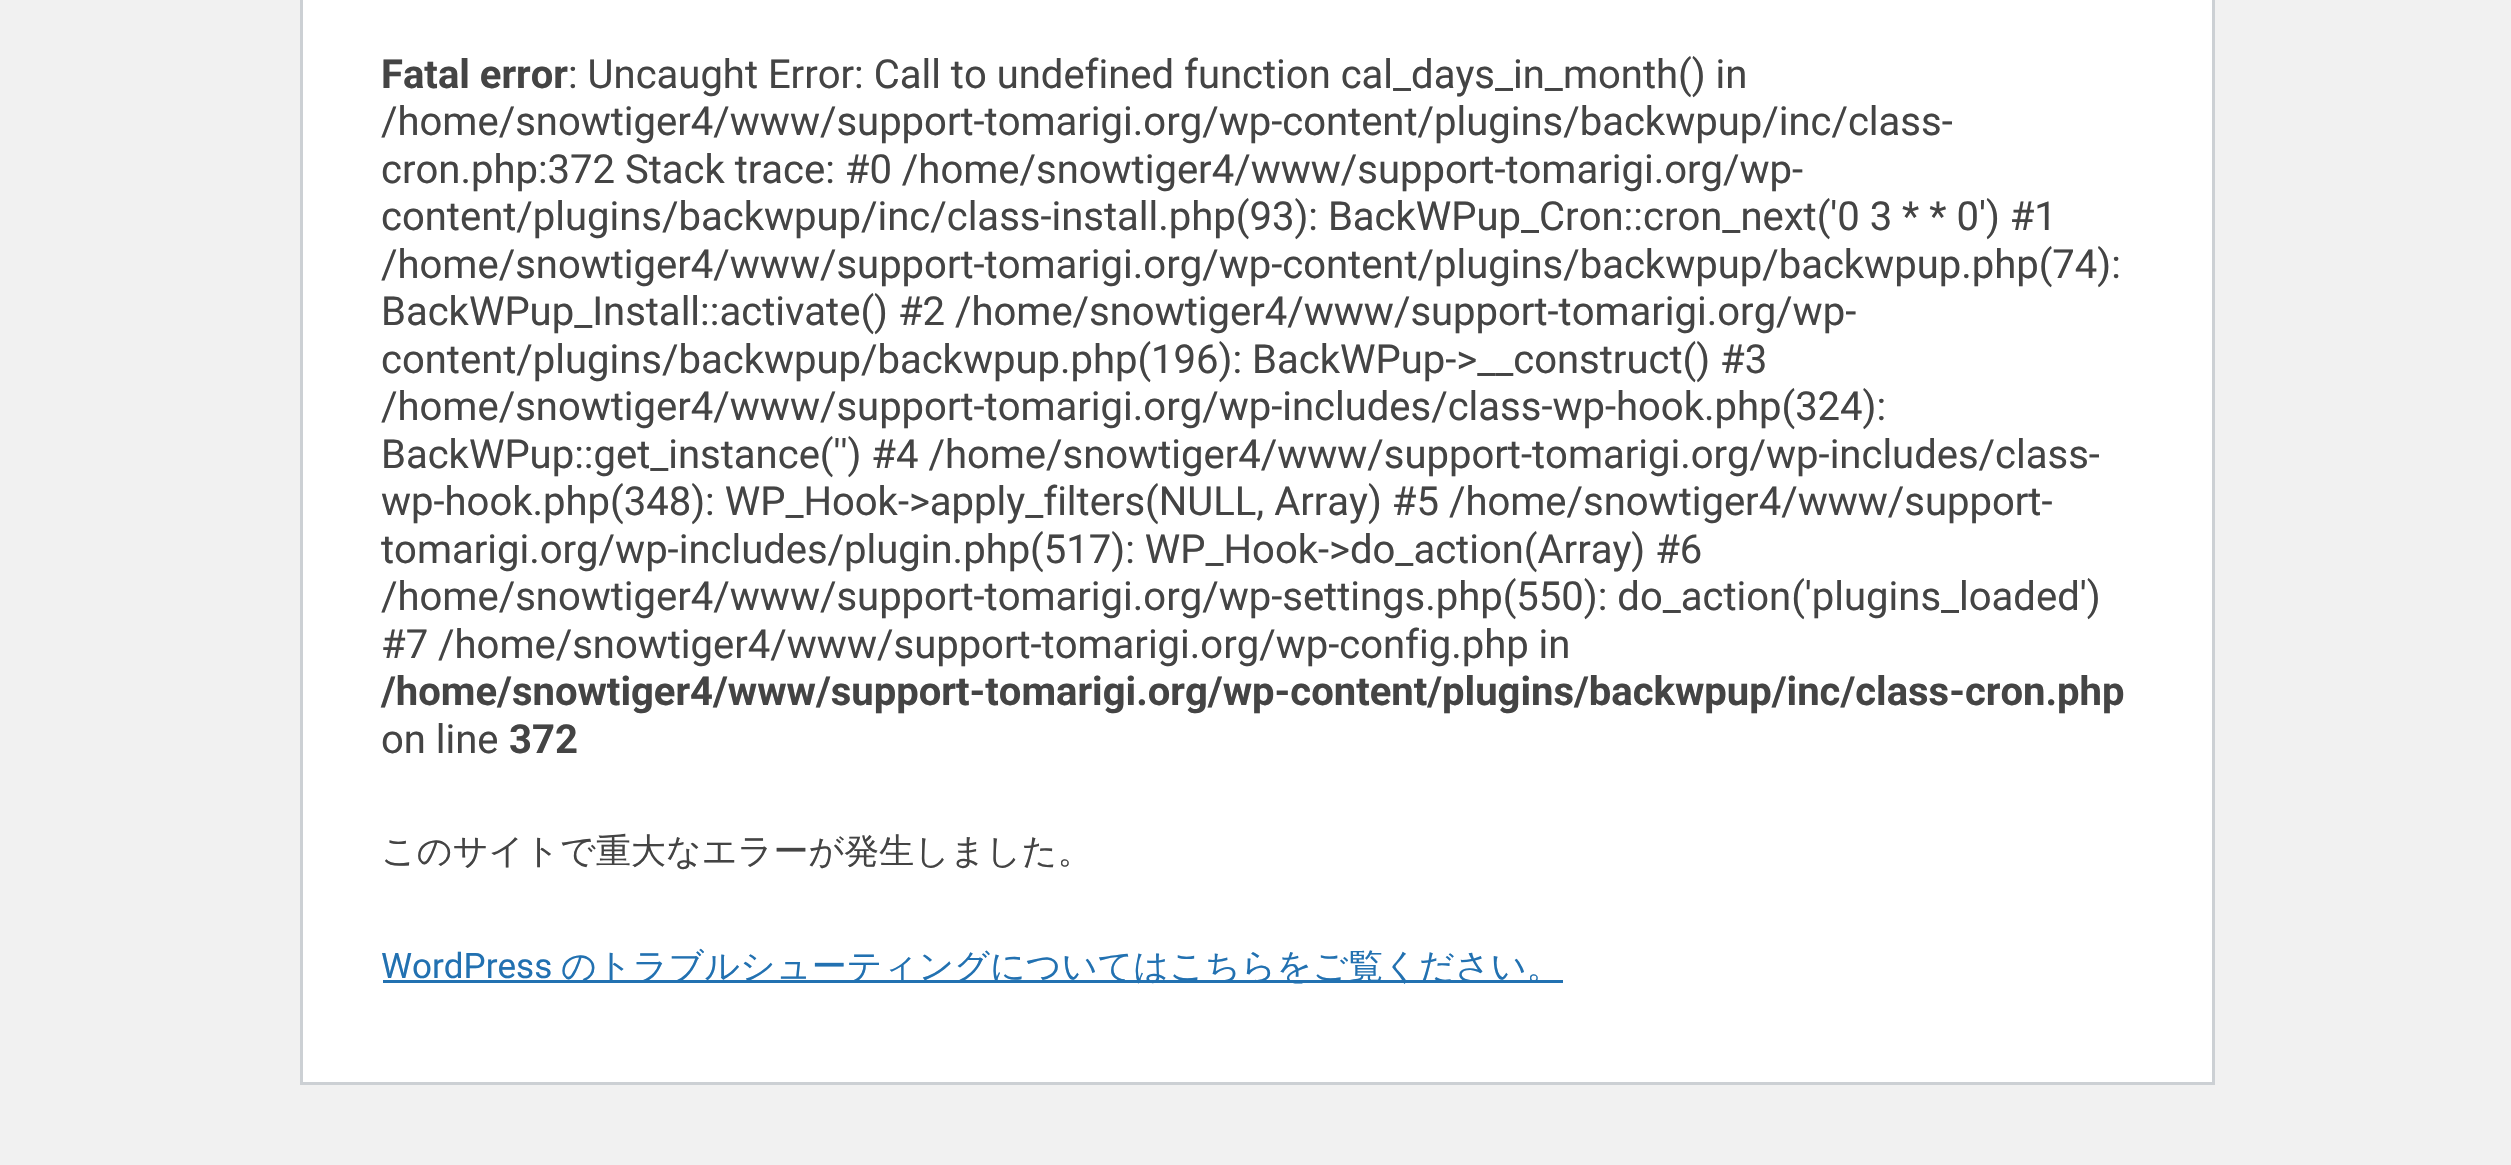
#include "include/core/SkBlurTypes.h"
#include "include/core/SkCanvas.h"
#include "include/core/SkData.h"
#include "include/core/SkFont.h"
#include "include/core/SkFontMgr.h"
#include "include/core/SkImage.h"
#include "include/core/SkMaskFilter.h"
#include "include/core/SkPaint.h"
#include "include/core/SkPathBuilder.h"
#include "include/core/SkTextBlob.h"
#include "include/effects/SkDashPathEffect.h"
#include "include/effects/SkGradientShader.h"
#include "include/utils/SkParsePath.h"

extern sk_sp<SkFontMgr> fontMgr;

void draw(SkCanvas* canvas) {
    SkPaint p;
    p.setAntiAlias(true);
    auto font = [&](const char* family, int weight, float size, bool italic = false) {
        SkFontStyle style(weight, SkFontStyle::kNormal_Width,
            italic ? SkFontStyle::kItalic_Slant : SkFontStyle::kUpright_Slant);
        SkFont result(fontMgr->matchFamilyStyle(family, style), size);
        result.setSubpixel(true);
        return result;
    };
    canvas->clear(0xFFF1F1F1);
    p.setColor(0xFFFFFFFF);
    canvas->drawRect(SkRect::MakeLTRB(301.5f, -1.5f, 2213.5f, 1083.5f), p);
    p.setStyle(SkPaint::kStroke_Style);
    p.setStrokeWidth(3);
    p.setColor(0xFFCCD0D4);
    canvas->drawRect(SkRect::MakeLTRB(301.5f, -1.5f, 2213.5f, 1083.5f), p);
    auto font1 = font("Roboto", 700, 40);
    p.setStyle(SkPaint::kFill_Style);
    p.setColor(0xFF444444);
    canvas->drawString("Fatal error", 381, 88, font1, p);
    auto font2 = font("Roboto", 400, 40);
    {
        const struct { const char* s; float x, y; } items[] = {
            {": Uncaught Error: Call to undefined function cal_days_in_month() in", 568, 88},
            {"/home/snowtiger4/www/support-tomarigi.org/wp-content/plugins/backwpup/inc/class-", 381, 135},
            {"cron.php:372 Stack trace: #0 /home/snowtiger4/www/support-tomarigi.org/wp-", 381, 183},
            {"content/plugins/backwpup/inc/class-install.php(93): BackWPup_Cron::cron_next('0 3 * * 0') #1", 381, 230},
            {"/home/snowtiger4/www/support-tomarigi.org/wp-content/plugins/backwpup/backwpup.php(74):", 381, 278},
            {"BackWPup_Install::activate() #2 /home/snowtiger4/www/support-tomarigi.org/wp-", 381, 325},
            {"content/plugins/backwpup/backwpup.php(196): BackWPup->__construct() #3", 381, 373},
            {"/home/snowtiger4/www/support-tomarigi.org/wp-includes/class-wp-hook.php(324):", 381, 420},
            {"BackWPup::get_instance('') #4 /home/snowtiger4/www/support-tomarigi.org/wp-includes/class-", 381, 468},
            {"wp-hook.php(348): WP_Hook->apply_filters(NULL, Array) #5 /home/snowtiger4/www/support-", 381, 515},
            {"tomarigi.org/wp-includes/plugin.php(517): WP_Hook->do_action(Array) #6", 381, 563},
            {"/home/snowtiger4/www/support-tomarigi.org/wp-settings.php(550): do_action('plugins_loaded')", 381, 610},
            {"#7 /home/snowtiger4/www/support-tomarigi.org/wp-config.php in", 381, 658},
        };
        for (auto [s, x, y] : items) {
            canvas->drawString(s, x, y, font2, p);
        }
    }
    canvas->drawString("/home/snowtiger4/www/support-tomarigi.org/wp-content/plugins/backwpup/inc/class-cron.php", 381, 705, font1, p);
    canvas->drawString("on line", 381, 753, font2, p);
    canvas->drawString("372", 509, 753, font1, p);
    auto font3 = font("WenQuanYi Zen Hei", 500, 35);
    canvas->drawString("このサイトで重大なエラーが発生しました。", 381, 863, font3, p);
    auto font4 = font("Roboto", 400, 35);
    p.setColor(0xFF2271B1);
    canvas->drawString("WordPress", 381, 978, font4, p);
    canvas->drawRect(SkRect::MakeLTRB(383, 980, 1563, 983), p);
    canvas->drawString("のトラブルシューティングについてはこちらをご覧ください。", 561, 978, font3, p);
}
